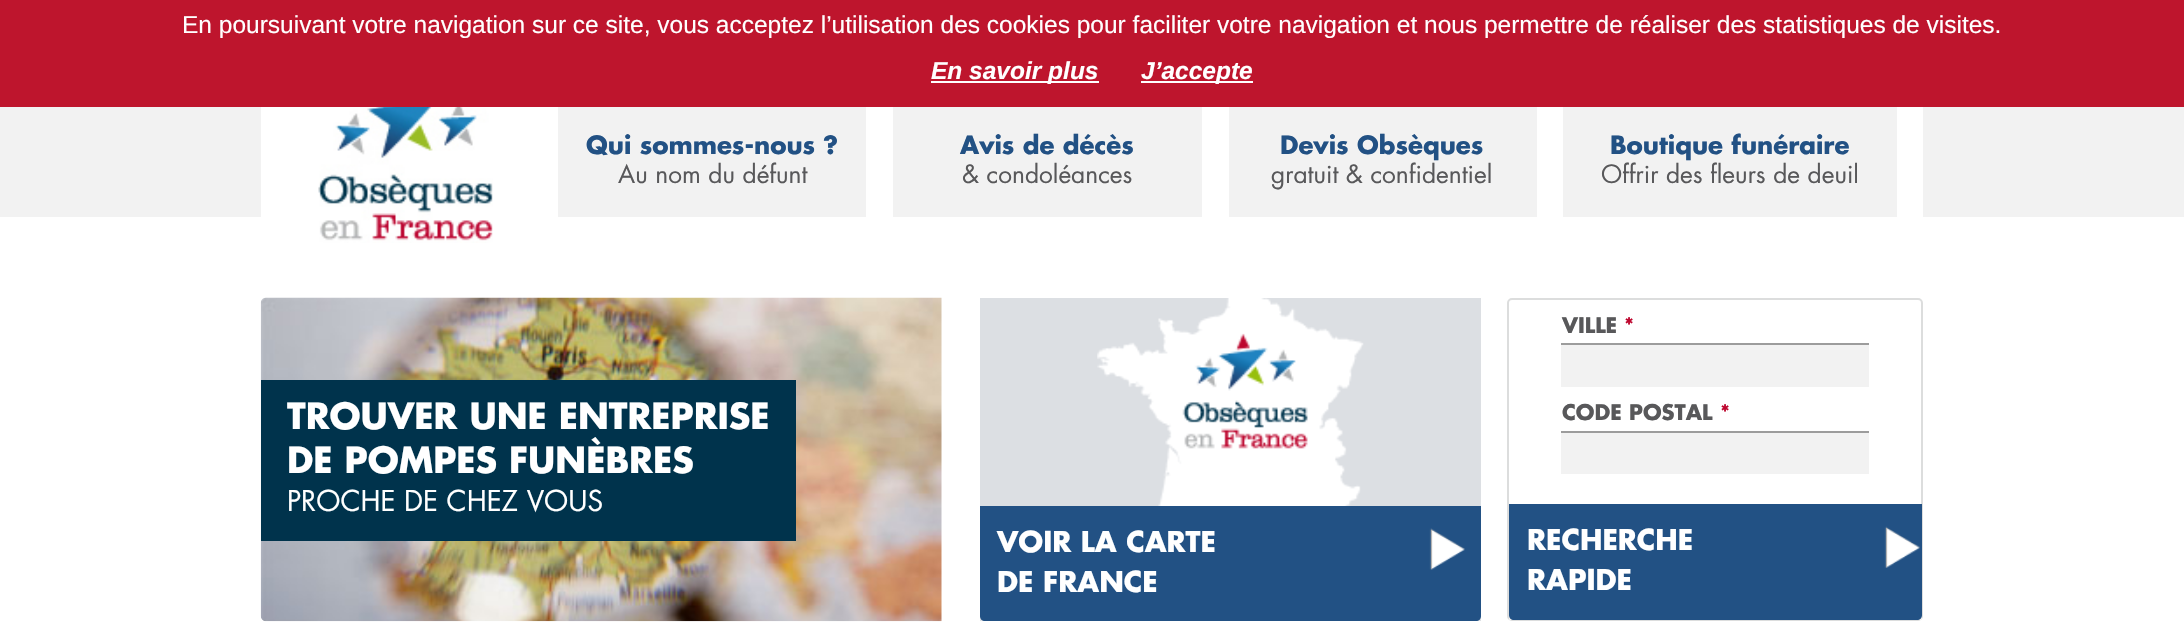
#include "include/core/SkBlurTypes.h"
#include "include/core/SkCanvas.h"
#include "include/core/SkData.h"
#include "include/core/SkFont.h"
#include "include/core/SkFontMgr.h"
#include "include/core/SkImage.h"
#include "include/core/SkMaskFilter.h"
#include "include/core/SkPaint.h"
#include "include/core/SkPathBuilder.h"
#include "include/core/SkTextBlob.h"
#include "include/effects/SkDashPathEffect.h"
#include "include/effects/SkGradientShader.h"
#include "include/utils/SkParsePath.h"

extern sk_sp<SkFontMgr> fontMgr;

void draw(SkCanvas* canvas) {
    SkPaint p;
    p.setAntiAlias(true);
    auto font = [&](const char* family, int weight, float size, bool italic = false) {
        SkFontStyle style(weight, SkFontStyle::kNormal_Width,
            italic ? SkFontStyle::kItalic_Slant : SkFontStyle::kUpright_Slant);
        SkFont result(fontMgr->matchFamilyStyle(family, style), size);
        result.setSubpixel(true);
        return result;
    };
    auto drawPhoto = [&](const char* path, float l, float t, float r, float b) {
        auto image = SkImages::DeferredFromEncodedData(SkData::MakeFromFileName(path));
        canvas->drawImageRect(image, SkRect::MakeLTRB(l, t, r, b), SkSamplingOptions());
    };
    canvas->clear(0xFFFFFFFF);
    drawPhoto("media/1.png", 0, 107, 2184, 217);
    p.setColor(0xFFBE152D);
    canvas->drawRect(SkRect::MakeLTRB(0, 0, 2184, 107), p);
    auto font1 = font("Liberation Sans", 400, 24.5f);
    p.setColor(0xFFFFFFFF);
    canvas->drawString("En poursuivant votre navigation sur ce site, vous acceptez l’utilisation des cookies pour faciliter votre navigation et nous permettre de réaliser des statistiques de visites.", 182, 33, font1, p);
    canvas->drawRect(SkRect::MakeLTRB(931, 81, 1099, 83), p);
    auto font2 = font("Liberation Sans", 700, 24.5f, true);
    canvas->drawString("En savoir plus", 931, 79, font2, p);
    canvas->drawRect(SkRect::MakeLTRB(1141, 81, 1253, 83), p);
    canvas->drawString("J’accepte", 1141, 79, font2, p);
    canvas->drawRect(SkRect::MakeLTRB(261, 107, 1923, 217), p);
    drawPhoto("media/2.png", 318, 107, 493, 243);
    p.setColor(0xFFF2F2F2);
    canvas->drawRect(SkRect::MakeLTRB(558, 107, 866, 217), p);
    auto font3 = font("Futura", 700, 24.5f);
    p.setColor(0xFF225184);
    canvas->drawString("Qui sommes-nous ?", 586, 154, font3, p);
    auto font4 = font("Futura", 400, 24.5f);
    p.setColor(0xFF58585A);
    canvas->drawString("Au nom du défunt", 618, 183, font4, p);
    p.setColor(0xFFF2F2F2);
    canvas->drawRect(SkRect::MakeLTRB(893, 107, 1202, 217), p);
    p.setColor(0xFF225184);
    canvas->drawString("Avis de décès", 960, 154, font3, p);
    p.setColor(0xFF58585A);
    canvas->drawString("& condoléances", 962, 183, font4, p);
    p.setColor(0xFFF2F2F2);
    canvas->drawRect(SkRect::MakeLTRB(1229, 107, 1537, 217), p);
    p.setColor(0xFF225184);
    canvas->drawString("Devis Obsèques", 1280, 154, font3, p);
    p.setColor(0xFF58585A);
    canvas->drawString("gratuit & confidentiel", 1271, 183, font4, p);
    p.setColor(0xFFF2F2F2);
    canvas->drawRect(SkRect::MakeLTRB(1563, 107, 1897, 217), p);
    p.setColor(0xFF225184);
    canvas->drawString("Boutique funéraire", 1610, 154, font3, p);
    p.setColor(0xFF58585A);
    canvas->drawString("Offrir des fleurs de deuil", 1601, 183, font4, p);
    drawPhoto("media/3.png", 260, 297, 942, 622);
    p.setColor(0xFF00334C);
    canvas->drawRect(SkRect::MakeLTRB(261, 380, 796, 541), p);
    auto font5 = font("Futura", 700, 35);
    p.setColor(0xFFFFFFFF);
    canvas->drawString("TROUVER UNE ENTREPRISE", 287, 429, font5, p);
    canvas->drawString("DE POMPES FUNÈBRES", 287, 473, font5, p);
    auto font6 = font("Futura", 400, 28);
    canvas->drawString("PROCHE DE CHEZ VOUS", 287, 511, font6, p);
    p.setStyle(SkPaint::kStroke_Style);
    p.setStrokeWidth(2);
    p.setColor(0xFFDCDDDD);
    canvas->drawRoundRect(SkRect::MakeLTRB(1508, 299, 1922, 620), 4, 4, p);
    auto font7 = font("Futura", 700, 21);
    p.setStyle(SkPaint::kFill_Style);
    p.setColor(0xFF58585A);
    canvas->drawString("VILLE", 1562, 333, font7, p);
    p.setColor(0xFFBE072F);
    canvas->drawString("*", 1624, 333, font7, p);
    p.setColor(0xFFF2F2F2);
    canvas->drawRect(SkRect::MakeLTRB(1561, 345, 1869, 387), p);
    p.setColor(0xFF9C9C9C);
    canvas->drawRect(SkRect::MakeLTRB(1561, 343, 1869, 345), p);
    p.setColor(0xFF58585A);
    canvas->drawString("CODE POSTAL", 1562, 420, font7, p);
    p.setColor(0xFFBE072F);
    canvas->drawString("*", 1720, 420, font7, p);
    {
        const struct { float l, t, r, b; SkColor color; } items[] = {
            {1561, 433, 1869, 474, 0xFFF2F2F2},
            {1561, 431, 1869, 433, 0xFF9C9C9C},
            {1509, 615, 1922, 620, 0xFFEFEFEF},
        };
        for (auto [l, t, r, b, color] : items) {
            p.setColor(color);
            canvas->drawRect(SkRect::MakeLTRB(l, t, r, b), p);
        }
    }
    p.setColor(0xFF225184);
    canvas->drawPath(SkPathBuilder().moveTo(1509, 504).lineTo(1922, 504).lineTo(1922, 615).cubicTo(1922, 618, 1920, 620, 1917, 620).lineTo(1514, 620).cubicTo(1511, 620, 1509, 618, 1509, 615).close().detach(), p);
    auto font8 = font("Futura", 700, 28);
    p.setColor(0xFFFFFFFF);
    canvas->drawString("RECHERCHE", 1527, 550, font8, p);
    canvas->drawString("RAPIDE", 1527, 590, font8, p);
    drawPhoto("media/4.png", 1884, 526, 1920, 568);
    p.setColor(0xFFDCDFE3);
    canvas->drawRect(SkRect::MakeLTRB(980, 298, 1481, 621), p);
    drawPhoto("media/5.png", 1097, 298, 1364, 506);
    p.setColor(0xFF225184);
    canvas->drawPath(SkPathBuilder().moveTo(980, 506).lineTo(1481, 506).lineTo(1481, 616).cubicTo(1481, 619, 1479, 621, 1476, 621).lineTo(985, 621).cubicTo(982, 621, 980, 619, 980, 616).close().detach(), p);
    p.setColor(0xFFFFFFFF);
    canvas->drawString("VOIR LA CARTE", 997, 552, font8, p);
    canvas->drawString("DE FRANCE", 997, 592, font8, p);
    drawPhoto("media/6.png", 1429, 528, 1465, 570);
}
